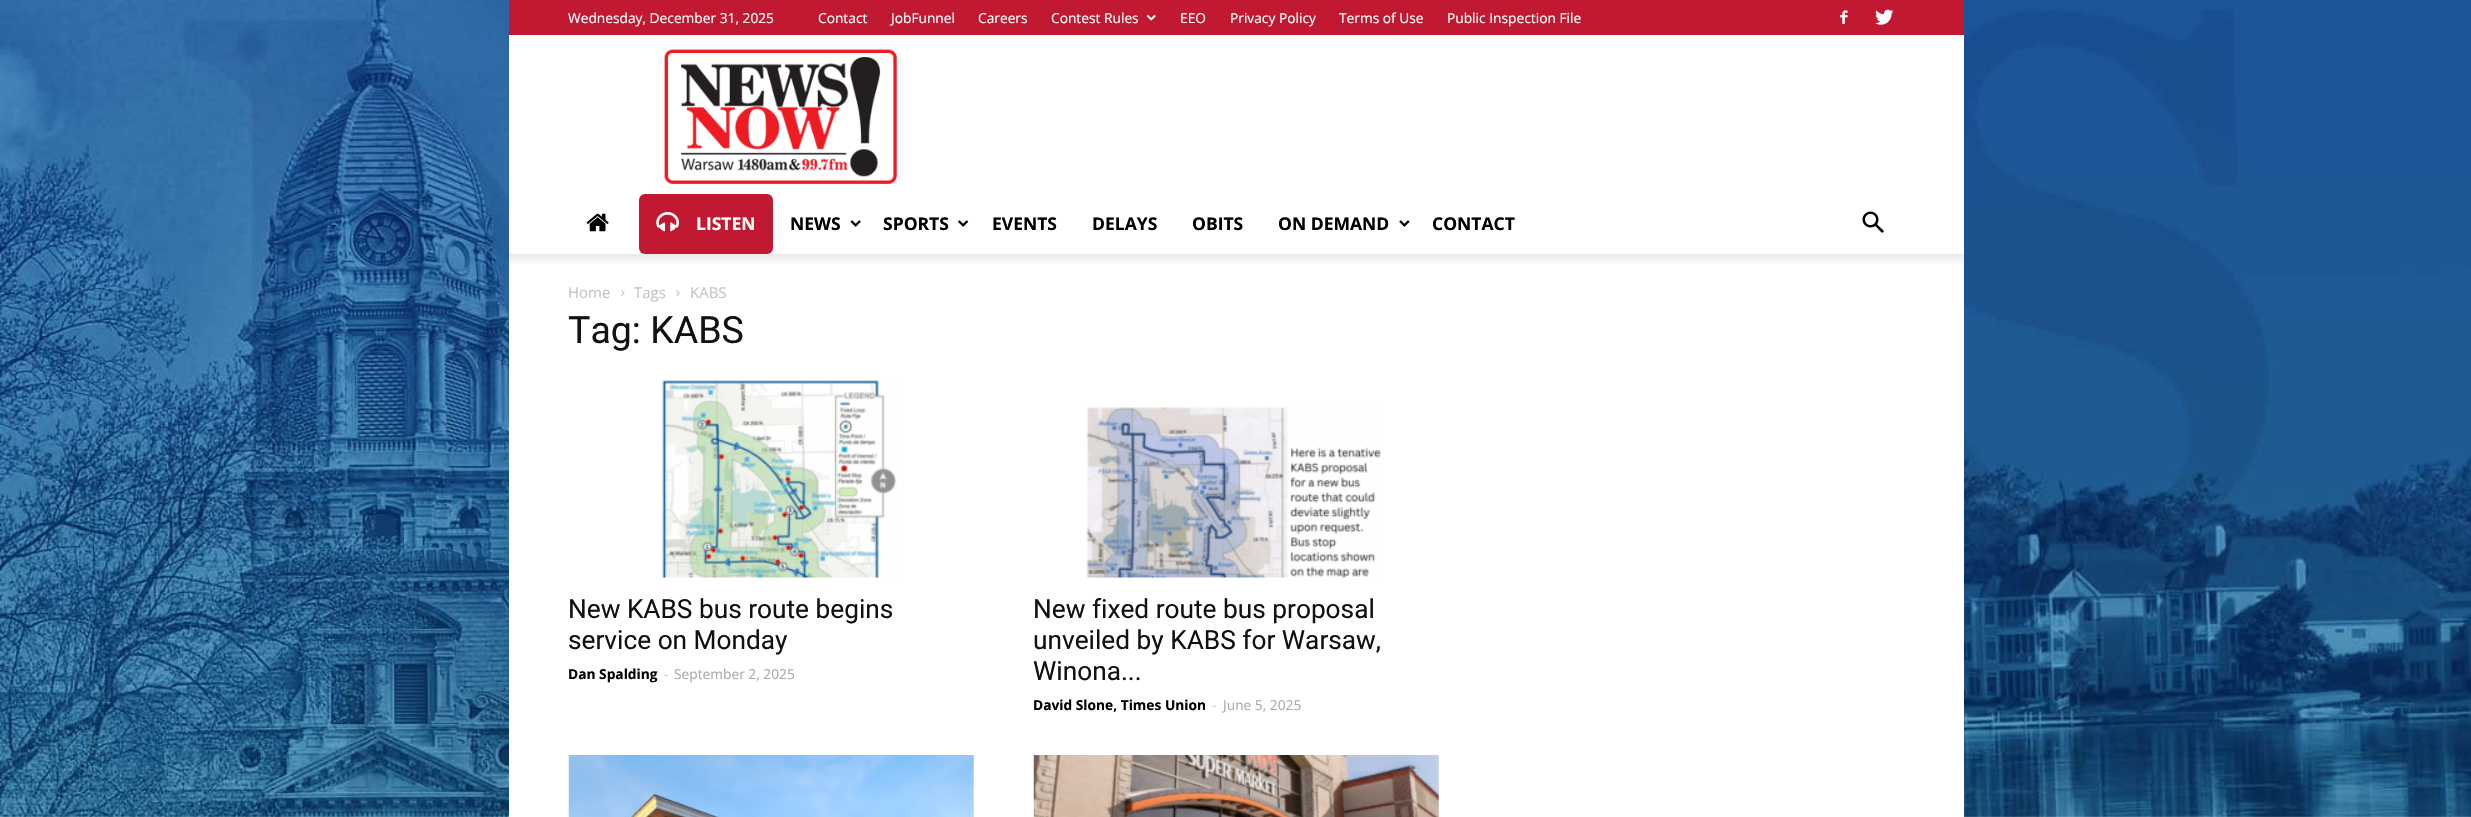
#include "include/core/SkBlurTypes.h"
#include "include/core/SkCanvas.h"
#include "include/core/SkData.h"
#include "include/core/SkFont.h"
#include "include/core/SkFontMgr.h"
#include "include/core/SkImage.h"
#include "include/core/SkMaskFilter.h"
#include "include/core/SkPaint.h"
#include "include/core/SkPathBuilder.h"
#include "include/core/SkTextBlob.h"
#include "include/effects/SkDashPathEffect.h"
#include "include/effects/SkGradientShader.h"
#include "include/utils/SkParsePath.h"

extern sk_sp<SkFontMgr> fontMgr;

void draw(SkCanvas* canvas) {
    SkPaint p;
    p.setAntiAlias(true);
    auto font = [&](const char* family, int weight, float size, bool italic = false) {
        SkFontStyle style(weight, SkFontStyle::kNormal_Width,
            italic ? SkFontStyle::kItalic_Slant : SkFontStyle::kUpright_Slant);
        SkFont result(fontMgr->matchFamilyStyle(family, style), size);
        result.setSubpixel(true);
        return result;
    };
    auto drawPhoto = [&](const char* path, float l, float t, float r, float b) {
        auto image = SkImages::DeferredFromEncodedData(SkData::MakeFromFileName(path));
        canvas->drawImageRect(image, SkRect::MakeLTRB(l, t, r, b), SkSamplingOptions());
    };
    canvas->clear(0xFFFFFFFF);
    drawPhoto("media/1.png", 0, 0, 2471, 817);
    p.setColor(0xFFC11932);
    canvas->drawRect(SkRect::MakeLTRB(509, 0, 1964, 35), p);
    auto font1 = font("Open Sans", 400, 13.75f);
    p.setColor(0xFFFFFFFF);
    {
        const struct { const char* s; float x, y; } items[] = {
            {"Wednesday, December 31, 2025", 568, 23},
            {"Contact", 818, 23},
            {"JobFunnel", 891, 23},
            {"Careers", 978, 23},
            {"Contest Rules", 1051, 23},
        };
        for (auto [s, x, y] : items) {
            canvas->drawString(s, x, y, font1, p);
        }
    }
    drawPhoto("media/2.png", 1146, 14, 1156, 21);
    {
        const struct { const char* s; float x, y; } items[] = {
            {"EEO", 1180, 23},
            {"Privacy Policy", 1230, 23},
            {"Terms of Use", 1339, 23},
            {"Public Inspection File", 1447, 23},
        };
        for (auto [s, x, y] : items) {
            canvas->drawString(s, x, y, font1, p);
        }
    }
    drawPhoto("media/3.png", 1840, 10, 1848, 24);
    drawPhoto("media/4.png", 1875, 9, 1894, 25);
    canvas->drawRect(SkRect::MakeLTRB(509, 35, 1964, 254), p);
    drawPhoto("media/5.png", 664, 49, 897, 184);
    drawPhoto("media/6.png", 586, 213, 609, 232);
    p.setColor(0xFFC11932);
    canvas->drawRoundRect(SkRect::MakeLTRB(639, 194, 773, 254), 6, 6, p);
    drawPhoto("media/7.png", 656, 212, 679, 232);
    auto font2 = font("Open Sans", 700, 17.5f);
    p.setColor(0xFFFFFFFF);
    canvas->drawString("LISTEN", 696, 230, font2, p);
    p.setColor(0xFF000000);
    canvas->drawString("NEWS", 790, 230, font2, p);
    drawPhoto("media/8.png", 850, 220, 861, 227);
    canvas->drawString("SPORTS", 883, 230, font2, p);
    drawPhoto("media/9.png", 958, 220, 969, 227);
    {
        const struct { const char* s; float x, y; } items[] = {
            {"EVENTS", 992, 230},
            {"DELAYS", 1092, 230},
            {"OBITS", 1192, 230},
            {"ON DEMAND", 1278, 230},
        };
        for (auto [s, x, y] : items) {
            canvas->drawString(s, x, y, font2, p);
        }
    }
    drawPhoto("media/10.png", 1399, 220, 1410, 227);
    canvas->drawString("CONTACT", 1432, 230, font2, p);
    drawPhoto("media/11.png", 1862, 211, 1884, 233);
    p.setColor(0xFFFFFFFF);
    canvas->drawRect(SkRect::MakeLTRB(509, 254, 1964, 817), p);
    drawPhoto("media/12.png", 509, 254, 1964, 264);
    auto font3 = font("Open Sans", 400, 15);
    p.setColor(0xFFC3C3C3);
    canvas->drawString("Home", 568, 298, font3, p);
    drawPhoto("media/13.png", 621, 290, 625, 296);
    canvas->drawString("Tags", 634, 298, font3, p);
    drawPhoto("media/13.png", 676, 290, 680, 296);
    canvas->drawString("KABS", 690, 298, font3, p);
    auto font4 = font("Roboto", 400, 37.5f);
    p.setColor(0xFF111111);
    canvas->drawString("Tag: KABS", 568, 343, font4, p);
    drawPhoto("media/14.png", 662, 379, 897, 578);
    auto font5 = font("Roboto", 400, 26.25f);
    canvas->drawString("New KABS bus route begins", 568, 618, font5, p);
    canvas->drawString("service on Monday", 568, 649, font5, p);
    auto font6 = font("Open Sans", 700, 13.75f);
    p.setColor(0xFF000000);
    canvas->drawString("Dan Spalding", 568, 679, font6, p);
    p.setColor(0xFFCCCCCC);
    canvas->drawString("-", 664, 679, font1, p);
    p.setColor(0xFFAAAAAA);
    canvas->drawString("September 2, 2025", 674, 679, font1, p);
    drawPhoto("media/15.png", 1086, 407, 1382, 578);
    p.setColor(0xFF111111);
    {
        const struct { const char* s; float x, y; } items[] = {
            {"New fixed route bus proposal", 1033, 618},
            {"unveiled by KABS for Warsaw,", 1033, 649},
            {"Winona...", 1033, 680},
        };
        for (auto [s, x, y] : items) {
            canvas->drawString(s, x, y, font5, p);
        }
    }
    p.setColor(0xFF000000);
    canvas->drawString("David Slone, Times Union", 1033, 710, font6, p);
    p.setColor(0xFFCCCCCC);
    canvas->drawString("-", 1212, 710, font1, p);
    p.setColor(0xFFAAAAAA);
    canvas->drawString("June 5, 2025", 1223, 710, font1, p);
    drawPhoto("media/16.png", 568, 755, 974, 817);
    drawPhoto("media/17.png", 1033, 755, 1439, 817);
}
